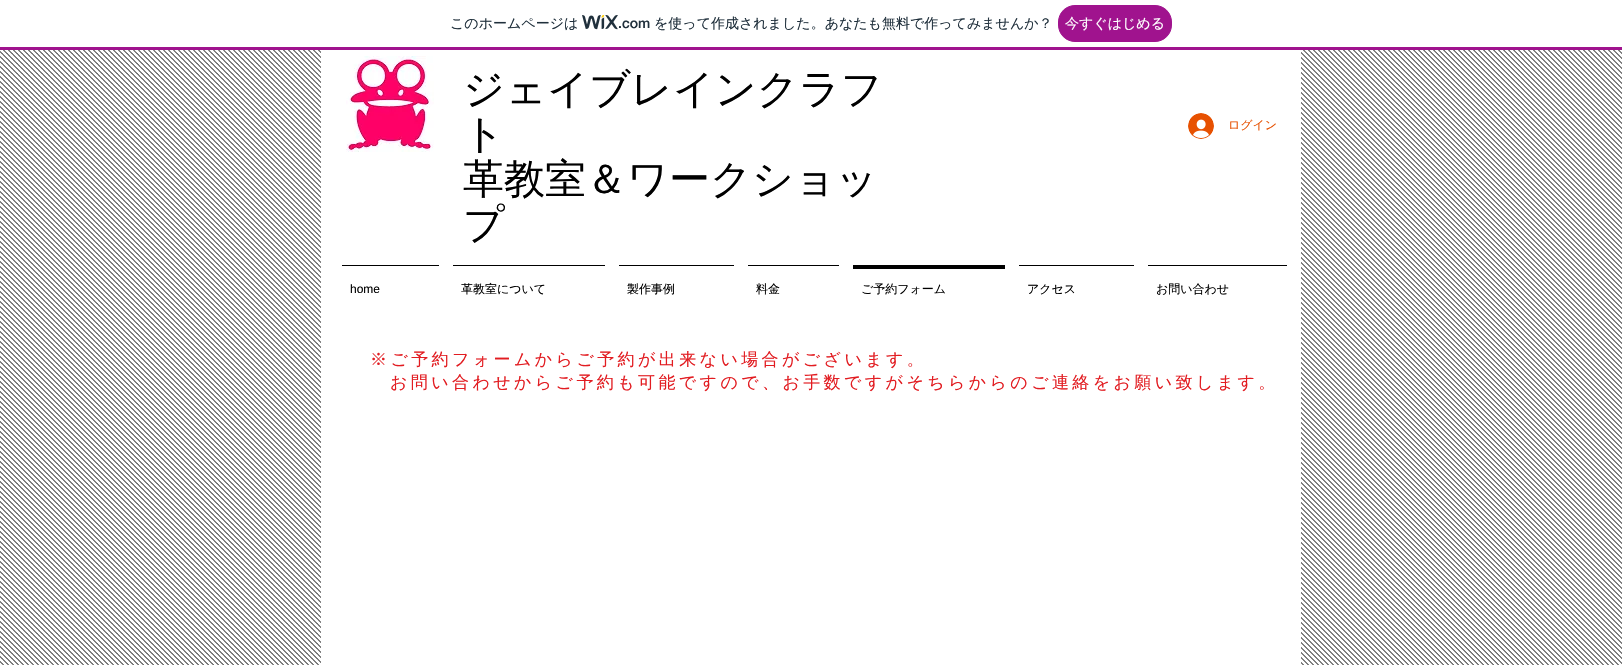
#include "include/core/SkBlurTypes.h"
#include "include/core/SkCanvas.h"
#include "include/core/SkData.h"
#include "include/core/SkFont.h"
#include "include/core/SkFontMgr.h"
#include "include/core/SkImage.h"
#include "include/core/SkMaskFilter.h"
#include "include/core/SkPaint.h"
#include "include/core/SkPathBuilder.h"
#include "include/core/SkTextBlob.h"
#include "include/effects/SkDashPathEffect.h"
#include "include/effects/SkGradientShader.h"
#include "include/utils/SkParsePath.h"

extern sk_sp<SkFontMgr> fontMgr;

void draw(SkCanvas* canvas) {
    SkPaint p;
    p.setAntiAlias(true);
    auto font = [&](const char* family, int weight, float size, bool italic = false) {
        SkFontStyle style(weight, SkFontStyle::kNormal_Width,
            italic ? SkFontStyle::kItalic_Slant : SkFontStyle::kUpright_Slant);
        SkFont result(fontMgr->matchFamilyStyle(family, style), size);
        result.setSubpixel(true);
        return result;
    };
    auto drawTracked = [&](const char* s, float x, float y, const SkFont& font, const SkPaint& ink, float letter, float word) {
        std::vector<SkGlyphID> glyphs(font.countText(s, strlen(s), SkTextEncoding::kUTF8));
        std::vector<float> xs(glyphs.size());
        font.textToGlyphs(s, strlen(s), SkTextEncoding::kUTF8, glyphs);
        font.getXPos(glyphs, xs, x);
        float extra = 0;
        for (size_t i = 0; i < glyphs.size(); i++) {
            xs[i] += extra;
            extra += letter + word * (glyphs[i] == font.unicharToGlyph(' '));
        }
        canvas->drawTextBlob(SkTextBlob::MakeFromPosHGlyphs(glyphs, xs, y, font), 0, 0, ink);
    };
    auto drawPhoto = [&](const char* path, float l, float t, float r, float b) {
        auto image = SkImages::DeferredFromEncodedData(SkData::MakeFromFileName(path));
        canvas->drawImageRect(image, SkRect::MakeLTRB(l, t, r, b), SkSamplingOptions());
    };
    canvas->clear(0xFFFFFFFF);
    p.setColor(0xFFA0138E);
    canvas->drawRect(SkRect::MakeLTRB(0, 47, 1622, 50), p);
    auto font1 = font("WenQuanYi Zen Hei", 500, 14);
    p.setColor(0xFF20303C);
    canvas->drawString("このホームページは", 450, 28, font1, p);
    drawPhoto("media/1.png", 582, 15, 618, 30);
    auto font2 = font("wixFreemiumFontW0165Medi", 500, 14);
    canvas->drawString(".com", 618, 28, font2, p);
    canvas->drawString("を使って作成されました。あなたも無料で作ってみませんか？", 654, 28, font1, p);
    p.setColor(0xFFA0138E);
    canvas->drawRoundRect(SkRect::MakeLTRB(1058.5f, 5.5f, 1171.5f, 41.5f), 16.5f, 16.5f, p);
    p.setStyle(SkPaint::kStroke_Style);
    p.setStrokeWidth(1);
    canvas->drawRoundRect(SkRect::MakeLTRB(1058.5f, 5.5f, 1171.5f, 41.5f), 16.5f, 16.5f, p);
    p.setStyle(SkPaint::kFill_Style);
    p.setColor(0xFFFFFFFF);
    canvas->drawString("今すぐはじめる", 1065, 28, font1, p);
    drawPhoto("media/2.png", 0, 50, 1622, 665);
    canvas->drawRect(SkRect::MakeLTRB(321, 50, 1301, 665), p);
    drawPhoto("media/3.png", 346, 56, 434, 152);
    auto font3 = font("WenQuanYi Zen Hei", 500, 41);
    p.setColor(0xFF000000);
    {
        const struct { const char* s; float x, y; } items[] = {
            {"ジェイブレインクラフ", 463, 103},
            {"ト", 463, 148},
            {"革教室＆ワークショッ", 463, 193},
            {"プ", 463, 238},
        };
        for (auto [s, x, y] : items) {
            canvas->drawString(s, x, y, font3, p);
        }
    }
    canvas->drawRect(SkRect::MakeLTRB(342, 265, 439, 266), p);
    auto font4 = font("Liberation Sans", 400, 12);
    canvas->drawString("home", 350, 293, font4, p);
    canvas->drawRect(SkRect::MakeLTRB(453, 265, 605, 266), p);
    auto font5 = font("WenQuanYi Zen Hei", 500, 12);
    canvas->drawString("革教室について", 461, 293, font5, p);
    canvas->drawRect(SkRect::MakeLTRB(619, 265, 734, 266), p);
    canvas->drawString("製作事例", 627, 293, font5, p);
    canvas->drawRect(SkRect::MakeLTRB(748, 265, 839, 266), p);
    canvas->drawString("料金", 756, 293, font5, p);
    canvas->drawRect(SkRect::MakeLTRB(853, 265, 1005, 269), p);
    canvas->drawString("ご予約フォーム", 861, 293, font5, p);
    canvas->drawRect(SkRect::MakeLTRB(1019, 265, 1134, 266), p);
    canvas->drawString("アクセス", 1027, 293, font5, p);
    canvas->drawRect(SkRect::MakeLTRB(1148, 265, 1287, 266), p);
    canvas->drawString("お問い合わせ", 1156, 293, font5, p);
    drawPhoto("media/4.png", 1188, 113, 1214, 139);
    p.setColor(0xFFE75101);
    canvas->drawString("ログイン", 1228, 129, font5, p);
    auto font6 = font("WenQuanYi Zen Hei", 500, 17);
    p.setColor(0xFFE21C21);
    drawTracked("※ご予約フォームからご予約が出来ない場合がございます。", 370, 365, font6, p, 3.4f, 0);
    drawTracked("お問い合わせからご予約も可能ですので、お手数ですがそちらからのご連絡をお願い致します。", 390, 388, font6, p, 3.4f, 0);
}
